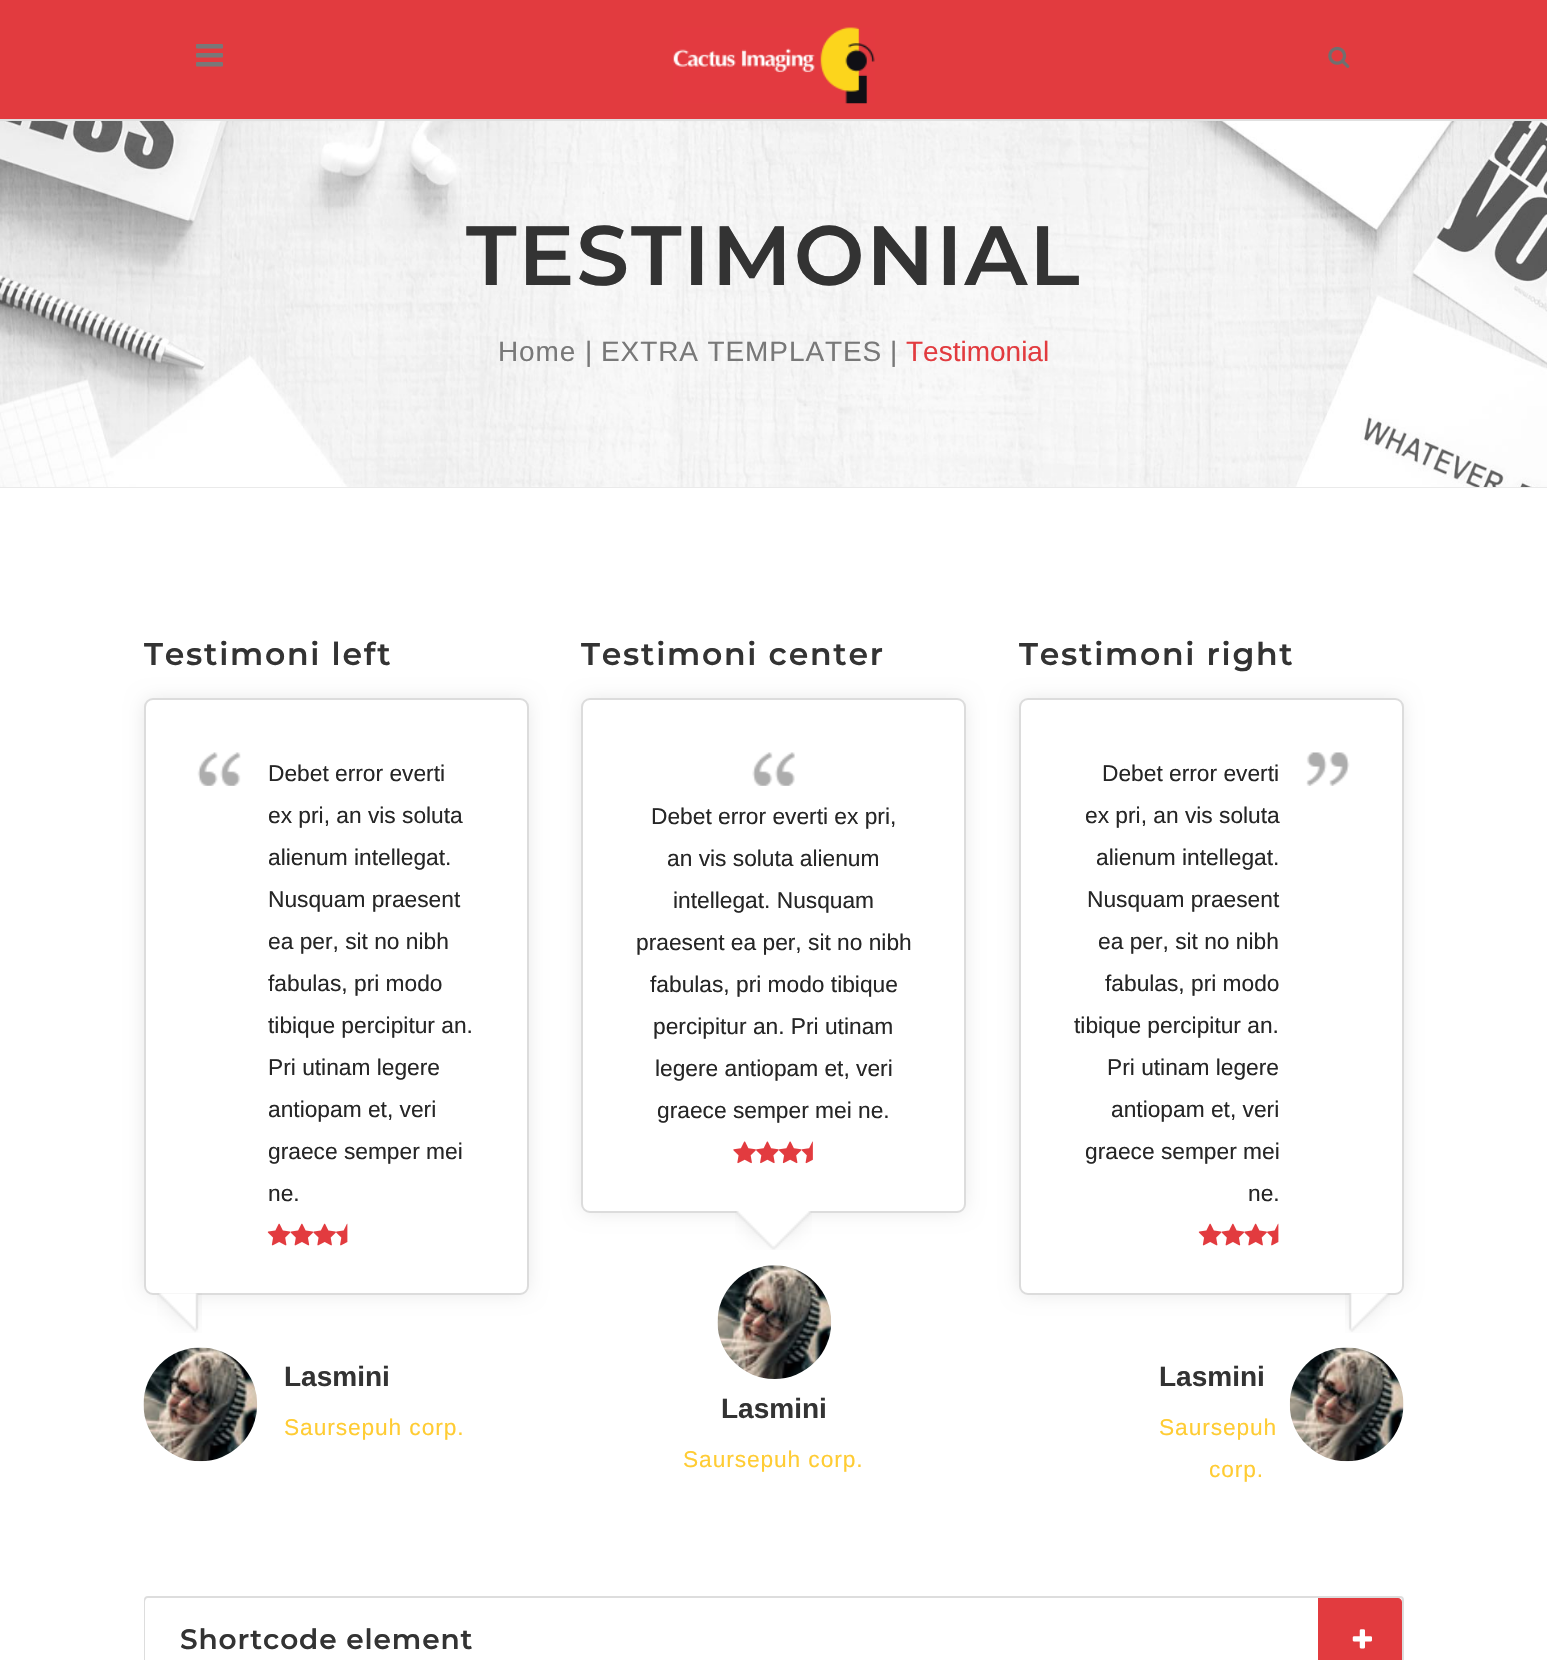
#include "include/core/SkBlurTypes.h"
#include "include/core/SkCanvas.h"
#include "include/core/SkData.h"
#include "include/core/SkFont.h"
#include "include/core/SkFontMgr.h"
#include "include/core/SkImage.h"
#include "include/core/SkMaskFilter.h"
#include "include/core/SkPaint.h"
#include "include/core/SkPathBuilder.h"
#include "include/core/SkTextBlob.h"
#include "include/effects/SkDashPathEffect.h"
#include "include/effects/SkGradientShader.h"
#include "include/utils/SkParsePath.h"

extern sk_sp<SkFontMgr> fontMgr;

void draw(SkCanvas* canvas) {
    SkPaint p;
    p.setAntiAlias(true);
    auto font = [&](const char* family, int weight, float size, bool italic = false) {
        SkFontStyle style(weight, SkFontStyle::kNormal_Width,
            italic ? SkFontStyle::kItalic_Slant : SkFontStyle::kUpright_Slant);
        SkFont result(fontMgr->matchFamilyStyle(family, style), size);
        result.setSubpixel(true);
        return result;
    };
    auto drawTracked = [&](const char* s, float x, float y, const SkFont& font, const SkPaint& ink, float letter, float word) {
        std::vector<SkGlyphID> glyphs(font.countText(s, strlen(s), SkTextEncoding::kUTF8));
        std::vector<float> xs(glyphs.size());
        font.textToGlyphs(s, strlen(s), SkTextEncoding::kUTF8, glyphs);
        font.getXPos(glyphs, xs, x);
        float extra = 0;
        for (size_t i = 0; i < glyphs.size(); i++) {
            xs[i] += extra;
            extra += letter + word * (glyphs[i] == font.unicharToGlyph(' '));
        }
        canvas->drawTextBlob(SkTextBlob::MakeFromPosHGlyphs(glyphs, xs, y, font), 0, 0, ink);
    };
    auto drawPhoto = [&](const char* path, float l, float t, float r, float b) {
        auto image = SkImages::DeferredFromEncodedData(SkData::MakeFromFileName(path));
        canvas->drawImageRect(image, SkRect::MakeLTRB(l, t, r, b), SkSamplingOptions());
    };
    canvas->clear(0xFFFFFFFF);
    p.setColor(0xFFE23B3F);
    canvas->drawRect(SkRect::MakeLTRB(0, 0, 1547, 119), p);
    p.setColor(0xFFE0E0E0);
    canvas->drawRect(SkRect::MakeLTRB(0, 119, 1547, 121), p);
    drawPhoto("media/1.png", 196, 44, 223, 67);
    drawPhoto("media/2.png", 673, 27, 875, 104);
    drawPhoto("media/3.png", 1328, 46, 1350, 68);
    drawPhoto("media/4.png", 0, 121, 1547, 487);
    p.setColor(0xFFEAEAEA);
    canvas->drawRect(SkRect::MakeLTRB(0, 487, 1547, 488), p);
    auto font1 = font("Montserrat", 100, 84);
    p.setColor(0xFF333333);
    drawTracked("TESTIMONIAL", 466, 285, font1, p, 1.75f, 0);
    auto font2 = font("Liberation Sans", 400, 28);
    p.setColor(0xFF787878);
    drawTracked("Home", 498, 361, font2, p, 0.9f, 0);
    canvas->drawString("|", 585, 361, font2, p);
    drawTracked("EXTRA TEMPLATES", 601, 361, font2, p, 0.9f, 0);
    canvas->drawString("|", 890, 361, font2, p);
    p.setColor(0xFFE23B3F);
    canvas->drawString("Testimonial", 906, 361, font2, p);
    auto font3 = font("Montserrat", 100, 31.5f);
    p.setColor(0xFF333333);
    drawTracked("Testimoni left", 144, 665, font3, p, 1.75f, 0);
    p.setColor(0x1A000000);
    p.setMaskFilter(SkMaskFilter::MakeBlur(kNormal_SkBlurStyle, 9.5f));
    canvas->drawRoundRect(SkRect::MakeLTRB(145, 700, 527, 1293), 7, 7, p);
    p.setMaskFilter(nullptr);
    p.setColor(0xFFFFFFFF);
    canvas->drawRoundRect(SkRect::MakeLTRB(145, 699, 528, 1294), 8, 8, p);
    p.setStyle(SkPaint::kStroke_Style);
    p.setStrokeWidth(2);
    p.setColor(0xFFDCDCDC);
    canvas->drawRoundRect(SkRect::MakeLTRB(145, 699, 528, 1294), 8, 8, p);
    drawPhoto("media/5.png", 197, 752, 241, 786);
    auto font4 = font("Liberation Sans", 400, 22.75f);
    p.setStyle(SkPaint::kFill_Style);
    p.setColor(0xFF262626);
    {
        const struct { const char* s; float x, y; } items[] = {
            {"Debet error everti", 268, 781},
            {"ex pri, an vis soluta", 268, 823},
            {"alienum intellegat.", 268, 865},
            {"Nusquam praesent", 268, 907},
            {"ea per, sit no nibh", 268, 949},
            {"fabulas, pri modo", 268, 991},
            {"tibique percipitur an.", 268, 1033},
            {"Pri utinam legere", 268, 1075},
            {"antiopam et, veri", 268, 1117},
            {"graece semper mei", 268, 1159},
            {"ne.", 268, 1201},
        };
        for (auto [s, x, y] : items) {
            canvas->drawString(s, x, y, font4, p);
        }
    }
    drawPhoto("media/6.png", 267, 1223, 291, 1246);
    drawPhoto("media/7.png", 290, 1223, 314, 1246);
    drawPhoto("media/8.png", 313, 1223, 336, 1246);
    drawPhoto("media/9.png", 336, 1223, 348, 1246);
    drawPhoto("media/10.png", 157, 1293, 202, 1333);
    drawPhoto("media/11.png", 143, 1347, 258, 1462);
    auto font5 = font("Liberation Sans", 700, 28);
    p.setColor(0xFF333333);
    canvas->drawString("Lasmini", 284, 1386, font5, p);
    p.setColor(0xFFFFCC33);
    drawTracked("Saursepuh corp.", 284, 1435, font4, p, 0.9f, 0);
    p.setColor(0xFF333333);
    drawTracked("Testimoni center", 581, 665, font3, p, 1.75f, 0);
    p.setColor(0x1A000000);
    p.setMaskFilter(SkMaskFilter::MakeBlur(kNormal_SkBlurStyle, 9.5f));
    canvas->drawRoundRect(SkRect::MakeLTRB(583, 700, 964, 1211), 7, 7, p);
    p.setMaskFilter(nullptr);
    p.setColor(0xFFFFFFFF);
    canvas->drawRoundRect(SkRect::MakeLTRB(582, 699, 965, 1212), 8, 8, p);
    p.setStyle(SkPaint::kStroke_Style);
    p.setColor(0xFFDCDCDC);
    canvas->drawRoundRect(SkRect::MakeLTRB(582, 699, 965, 1212), 8, 8, p);
    drawPhoto("media/12.png", 752, 752, 795, 786);
    p.setStyle(SkPaint::kFill_Style);
    p.setColor(0xFF262626);
    {
        const struct { const char* s; float x, y; } items[] = {
            {"Debet error everti ex pri,", 651, 824},
            {"an vis soluta alienum", 667, 866},
            {"intellegat. Nusquam", 673, 908},
            {"praesent ea per, sit no nibh", 636, 950},
            {"fabulas, pri modo tibique", 650, 992},
            {"percipitur an. Pri utinam", 653, 1034},
            {"legere antiopam et, veri", 655, 1076},
            {"graece semper mei ne.", 657, 1118},
        };
        for (auto [s, x, y] : items) {
            canvas->drawString(s, x, y, font4, p);
        }
    }
    drawPhoto("media/13.png", 733, 1141, 756, 1164);
    drawPhoto("media/14.png", 756, 1141, 779, 1164);
    drawPhoto("media/15.png", 778, 1141, 802, 1164);
    drawPhoto("media/16.png", 801, 1141, 813, 1164);
    drawPhoto("media/17.png", 735, 1211, 812, 1250);
    drawPhoto("media/18.png", 717, 1265, 832, 1379);
    p.setColor(0xFF333333);
    canvas->drawString("Lasmini", 721, 1418, font5, p);
    p.setColor(0xFFFFCC33);
    drawTracked("Saursepuh corp.", 683, 1467, font4, p, 0.9f, 0);
    p.setColor(0xFF333333);
    drawTracked("Testimoni right", 1019, 665, font3, p, 1.75f, 0);
    p.setColor(0x1A000000);
    p.setMaskFilter(SkMaskFilter::MakeBlur(kNormal_SkBlurStyle, 9.5f));
    canvas->drawRoundRect(SkRect::MakeLTRB(1020, 700, 1402, 1293), 7, 7, p);
    p.setMaskFilter(nullptr);
    p.setColor(0xFFFFFFFF);
    canvas->drawRoundRect(SkRect::MakeLTRB(1020, 699, 1403, 1294), 8, 8, p);
    p.setStyle(SkPaint::kStroke_Style);
    p.setColor(0xFFDCDCDC);
    canvas->drawRoundRect(SkRect::MakeLTRB(1020, 699, 1403, 1294), 8, 8, p);
    drawPhoto("media/19.png", 1306, 752, 1350, 786);
    p.setStyle(SkPaint::kFill_Style);
    p.setColor(0xFF262626);
    {
        const struct { const char* s; float x, y; } items[] = {
            {"Debet error everti", 1102, 781},
            {"ex pri, an vis soluta", 1085, 823},
            {"alienum intellegat.", 1096, 865},
            {"Nusquam praesent", 1087, 907},
            {"ea per, sit no nibh", 1098, 949},
            {"fabulas, pri modo", 1105, 991},
            {"tibique percipitur an.", 1074, 1033},
            {"Pri utinam legere", 1107, 1075},
            {"antiopam et, veri", 1111, 1117},
            {"graece semper mei", 1085, 1159},
            {"ne.", 1248, 1201},
        };
        for (auto [s, x, y] : items) {
            canvas->drawString(s, x, y, font4, p);
        }
    }
    drawPhoto("media/6.png", 1198, 1223, 1222, 1246);
    drawPhoto("media/7.png", 1221, 1223, 1245, 1246);
    drawPhoto("media/8.png", 1244, 1223, 1267, 1246);
    drawPhoto("media/9.png", 1267, 1223, 1279, 1246);
    drawPhoto("media/20.png", 1345, 1293, 1390, 1333);
    p.setColor(0xFF333333);
    canvas->drawString("Lasmini", 1159, 1386, font5, p);
    drawPhoto("media/21.png", 1289, 1347, 1404, 1462);
    p.setColor(0xFFFFCC33);
    drawTracked("Saursepuh", 1159, 1435, font4, p, 0.9f, 0);
    drawTracked("corp.", 1209, 1477, font4, p, 0.9f, 0);
    p.setStyle(SkPaint::kStroke_Style);
    p.setColor(0xFFDDDDDD);
    canvas->drawRoundRect(SkRect::MakeLTRB(145, 1597, 1403, 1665), 3, 3, p);
    p.setStyle(SkPaint::kFill_Style);
    p.setColor(0xFFFFFFFF);
    canvas->drawRoundRect(SkRect::MakeLTRB(145, 1598, 1402, 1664), 4, 4, p);
    auto font6 = font("Montserrat", 100, 28);
    p.setColor(0xFF333333);
    drawTracked("Shortcode element", 180, 1649, font6, p, 0.9f, 0);
    p.setColor(0xFFE23B3F);
    canvas->drawPath(SkPathBuilder().moveTo(1318, 1598).lineTo(1398, 1598).cubicTo(1400, 1598, 1402, 1600, 1402, 1602).lineTo(1402, 1660).cubicTo(1402, 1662, 1400, 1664, 1398, 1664).lineTo(1318, 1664).close().detach(), p);
    drawPhoto("media/22.png", 1352, 1629, 1372, 1649);
}
